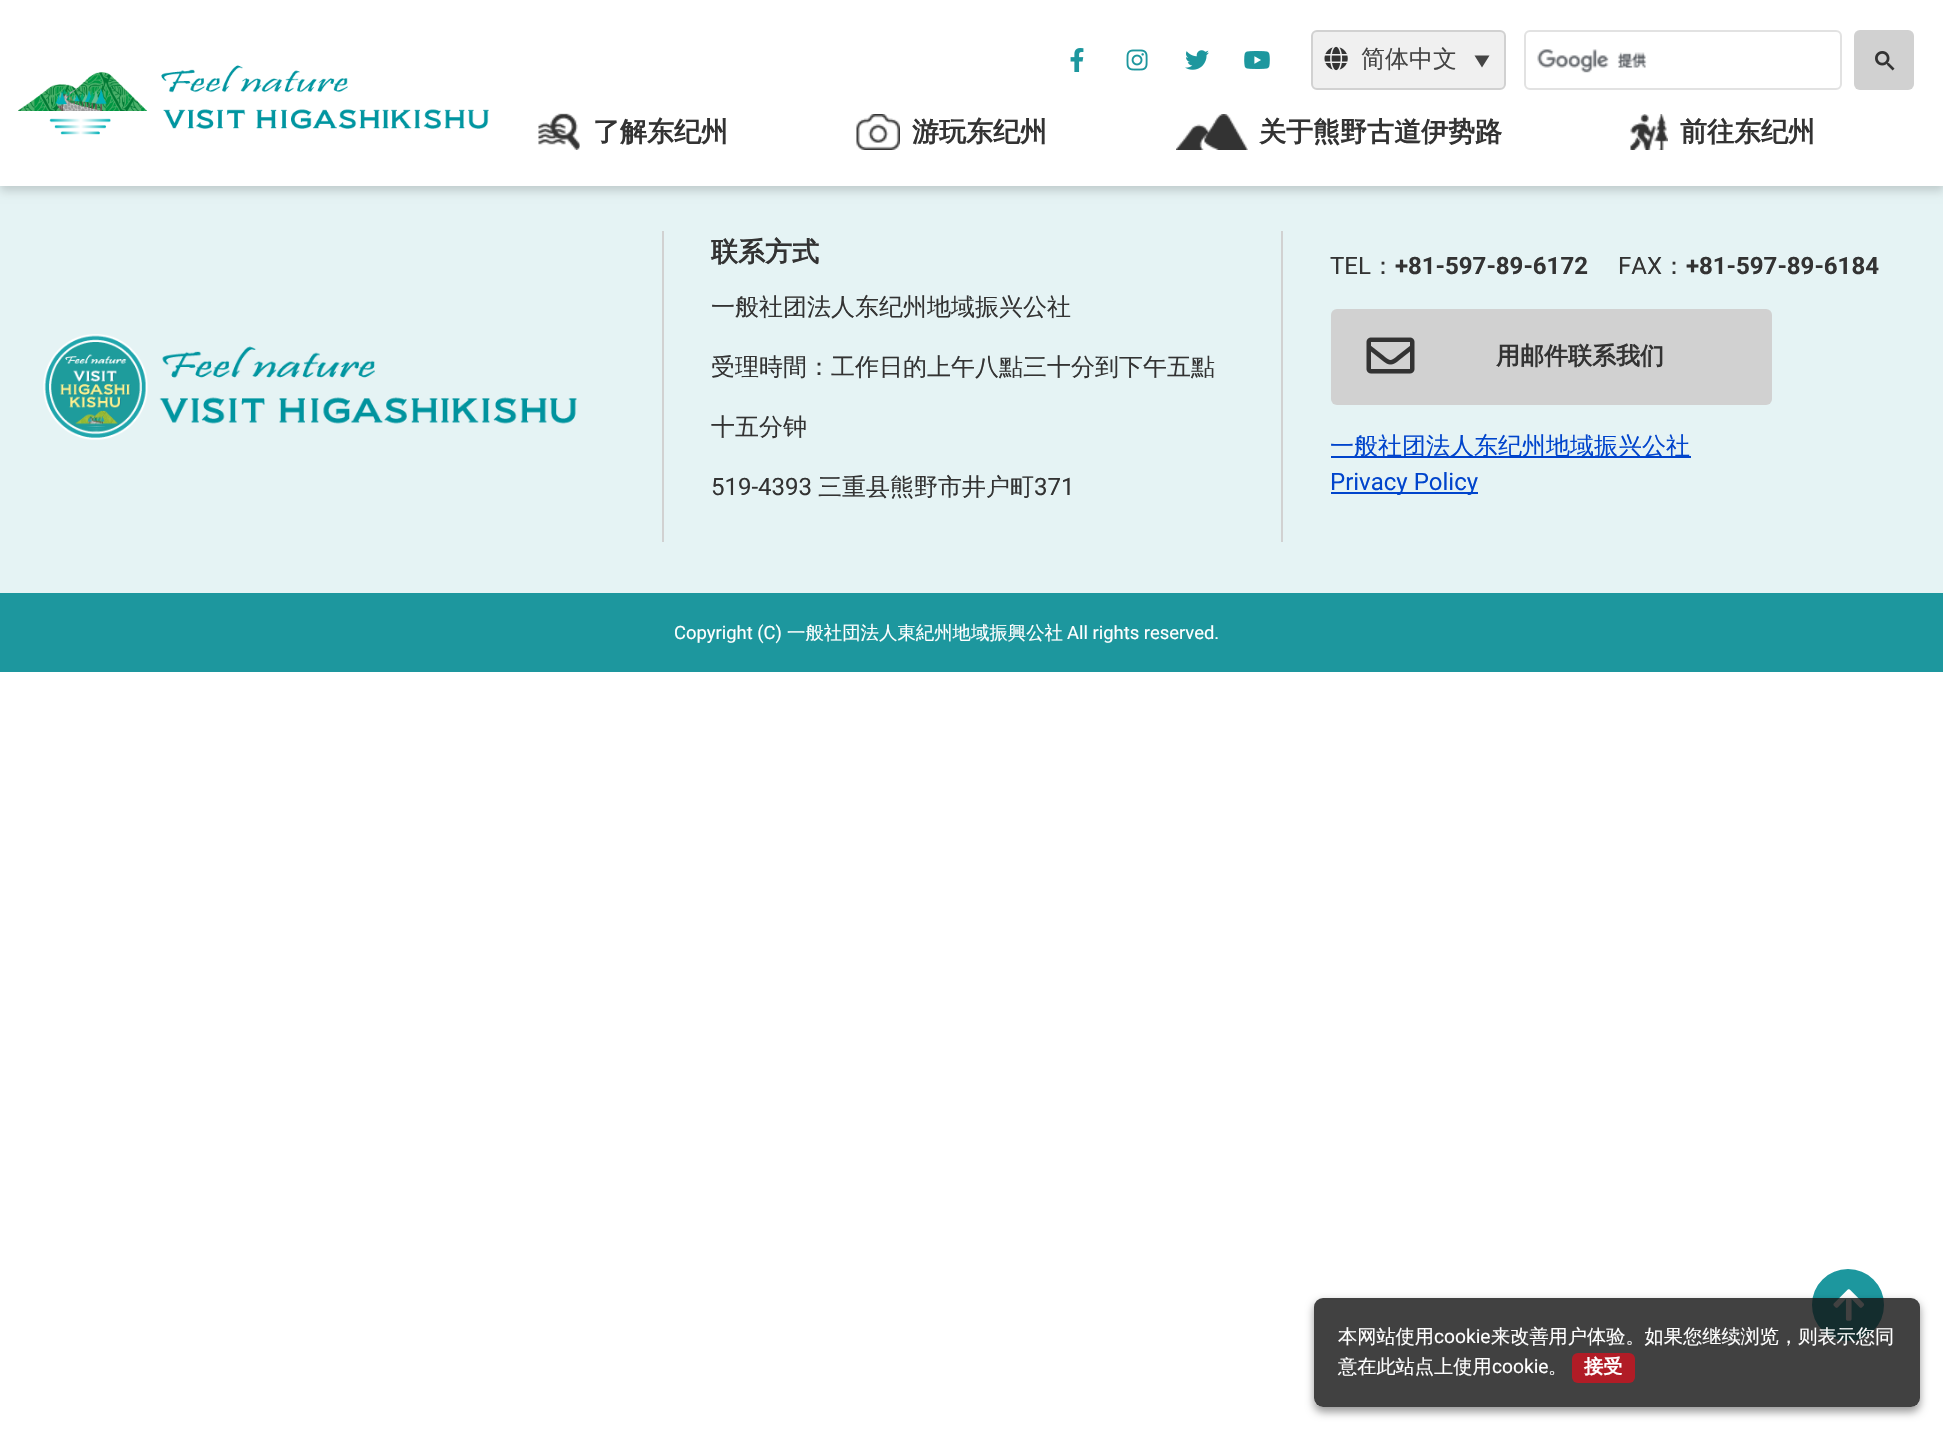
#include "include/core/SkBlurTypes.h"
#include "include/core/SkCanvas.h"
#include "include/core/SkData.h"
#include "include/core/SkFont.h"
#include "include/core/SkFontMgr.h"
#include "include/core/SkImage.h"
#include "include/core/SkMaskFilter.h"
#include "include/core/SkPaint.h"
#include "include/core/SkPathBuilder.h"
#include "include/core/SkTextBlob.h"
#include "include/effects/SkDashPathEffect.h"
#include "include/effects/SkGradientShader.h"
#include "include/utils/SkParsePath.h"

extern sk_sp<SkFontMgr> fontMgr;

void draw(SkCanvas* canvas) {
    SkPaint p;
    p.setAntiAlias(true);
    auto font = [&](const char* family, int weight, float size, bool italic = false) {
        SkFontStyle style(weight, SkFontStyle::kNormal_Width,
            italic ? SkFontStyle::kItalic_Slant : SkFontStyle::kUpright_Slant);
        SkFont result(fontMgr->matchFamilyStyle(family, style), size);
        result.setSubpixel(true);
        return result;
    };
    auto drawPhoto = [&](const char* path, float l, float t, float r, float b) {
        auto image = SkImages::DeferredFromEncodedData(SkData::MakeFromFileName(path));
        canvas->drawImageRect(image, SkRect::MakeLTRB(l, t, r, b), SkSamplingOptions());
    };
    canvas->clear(0xFFFFFFFF);
    p.setColor(0xFFE5F3F4);
    canvas->drawRect(SkRect::MakeLTRB(0, 186, 1943, 593), p);
    p.setColor(0x29000000);
    p.setMaskFilter(SkMaskFilter::MakeBlur(kNormal_SkBlurStyle, 4.5f));
    canvas->drawRect(SkRect::MakeLTRB(0, 5, 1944, 191), p);
    p.setMaskFilter(nullptr);
    p.setColor(0xFFFFFFFF);
    canvas->drawRect(SkRect::MakeLTRB(0, 0, 1943, 186), p);
    drawPhoto("media/1.png", 1070, 48, 1084, 72);
    drawPhoto("media/2.png", 1126, 49, 1148, 71);
    drawPhoto("media/3.png", 1185, 50, 1209, 70);
    drawPhoto("media/4.png", 1244, 51, 1270, 69);
    p.setColor(0xFFF0F0F0);
    canvas->drawRoundRect(SkRect::MakeLTRB(1312, 31, 1505, 89), 5, 5, p);
    p.setStyle(SkPaint::kStroke_Style);
    p.setStrokeWidth(2);
    p.setColor(0xFFD1D1D1);
    canvas->drawRoundRect(SkRect::MakeLTRB(1312, 31, 1505, 89), 5, 5, p);
    drawPhoto("media/5.png", 1324, 46, 1348, 71);
    auto font1 = font("WenQuanYi Zen Hei", 500, 24);
    p.setStyle(SkPaint::kFill_Style);
    p.setColor(0xFF444444);
    canvas->drawString("简体中文", 1361, 67, font1, p);
    canvas->drawPath(SkPathBuilder().moveTo(1474.5f, 55.5f).lineTo(1489.5f, 55.5f).lineTo(1482, 67.5f).close().detach(), p);
    drawPhoto("media/6.png", 18, 65, 489, 135);
    p.setStyle(SkPaint::kStroke_Style);
    p.setColor(0xFFE2E2E2);
    canvas->drawRoundRect(SkRect::MakeLTRB(1525, 31, 1841, 89), 5, 5, p);
    drawPhoto("media/7.png", 1537, 49, 1647, 73);
    p.setStyle(SkPaint::kFill_Style);
    p.setColor(0xFFD1D1D1);
    canvas->drawRoundRect(SkRect::MakeLTRB(1854, 30, 1914, 90), 6, 6, p);
    drawPhoto("media/8.png", 1875, 51, 1895, 71);
    drawPhoto("media/9.png", 538, 113, 580, 150);
    auto font2 = font("WenQuanYi Zen Hei", 700, 27);
    p.setColor(0xFF333333);
    canvas->drawString("了解东纪州", 593, 141, font2, p);
    drawPhoto("media/10.png", 856, 114, 900, 150);
    canvas->drawString("游玩东纪州", 912, 141, font2, p);
    drawPhoto("media/11.png", 1176, 114, 1248, 150);
    canvas->drawString("关于熊野古道伊势路", 1259, 141, font2, p);
    drawPhoto("media/12.png", 1630, 114, 1668, 150);
    canvas->drawString("前往东纪州", 1680, 141, font2, p);
    p.setColor(0xFF1D979E);
    canvas->drawRect(SkRect::MakeLTRB(0, 593, 1943, 672), p);
    drawPhoto("media/13.png", 43, 334, 577, 440);
    p.setColor(0xFFD1D1D1);
    canvas->drawRect(SkRect::MakeLTRB(1281, 231, 1283, 542), p);
    canvas->drawRect(SkRect::MakeLTRB(662, 231, 664, 542), p);
    p.setColor(0xFF333333);
    canvas->drawString("联系方式", 711, 261, font2, p);
    {
        const struct { const char* s; float x, y; } items[] = {
            {"一般社团法人东纪州地域振兴公社", 711, 315},
            {"受理時間：工作日的上午八點三十分到下午五點", 711, 375},
            {"十五分钟", 711, 435},
        };
        for (auto [s, x, y] : items) {
            canvas->drawString(s, x, y, font1, p);
        }
    }
    auto font3 = font("Roboto", 400, 24);
    canvas->drawString("519-4393", 711, 495, font3, p);
    canvas->drawString("三重县熊野市井户町", 818, 495, font1, p);
    canvas->drawString("371", 1034, 495, font3, p);
    canvas->drawString("TEL", 1330, 274, font3, p);
    canvas->drawString("：", 1371, 274, font1, p);
    auto font4 = font("Roboto", 700, 24);
    canvas->drawString("+81-597-89-6172", 1395, 274, font4, p);
    canvas->drawString("FAX", 1618, 274, font3, p);
    canvas->drawString("：", 1662, 274, font1, p);
    canvas->drawString("+81-597-89-6184", 1686, 274, font4, p);
    p.setColor(0xFFD1D1D1);
    canvas->drawRoundRect(SkRect::MakeLTRB(1331, 309, 1772, 405), 6, 6, p);
    drawPhoto("media/14.png", 1366, 337, 1415, 374);
    auto font5 = font("WenQuanYi Zen Hei", 700, 24);
    p.setColor(0xFF333333);
    canvas->drawString("用邮件联系我们", 1496, 364, font5, p);
    p.setColor(0xFF0044CC);
    canvas->drawRect(SkRect::MakeLTRB(1331, 456, 1691, 458), p);
    canvas->drawString("一般社团法人东纪州地域振兴公社", 1330, 454, font1, p);
    canvas->drawRect(SkRect::MakeLTRB(1331, 492, 1478, 494), p);
    canvas->drawString("Privacy Policy", 1330, 490, font3, p);
    auto font6 = font("Roboto", 400, 18.4f);
    p.setColor(0xFFFFFFFF);
    canvas->drawString("Copyright (C)", 674, 639, font6, p);
    auto font7 = font("WenQuanYi Zen Hei", 500, 18.4f);
    canvas->drawString("一般社団法人東紀州地域振興公社", 787, 639, font7, p);
    canvas->drawString("All rights reserved.", 1067, 639, font6, p);
    p.setColor(0xFF1D979E);
    canvas->drawCircle(1848, 1305, 35, p);
    p.setStyle(SkPaint::kStroke_Style);
    canvas->drawCircle(1848, 1305, 35, p);
    drawPhoto("media/15.png", 1833, 1289, 1865, 1321);
    canvas->save();
    canvas->clipPath(SkPathBuilder(SkPathFillType::kEvenOdd).moveTo(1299, 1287).lineTo(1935, 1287).lineTo(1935, 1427).lineTo(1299, 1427).close().moveTo(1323, 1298).lineTo(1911, 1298).cubicTo(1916, 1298, 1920, 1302, 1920, 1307).lineTo(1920, 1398).cubicTo(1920, 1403, 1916, 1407, 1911, 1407).lineTo(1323, 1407).cubicTo(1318, 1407, 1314, 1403, 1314, 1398).lineTo(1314, 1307).cubicTo(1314, 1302, 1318, 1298, 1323, 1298).close().detach(), true);
    p.setStyle(SkPaint::kFill_Style);
    p.setColor(0x66000000);
    p.setMaskFilter(SkMaskFilter::MakeBlur(kNormal_SkBlurStyle, 4.5f));
    canvas->drawRoundRect(SkRect::MakeLTRB(1314, 1302, 1920, 1412), 9, 9, p);
    p.setMaskFilter(nullptr);
    canvas->restore();
    p.setColor(0xCC111111);
    canvas->drawRoundRect(SkRect::MakeLTRB(1314, 1298, 1920, 1407), 9, 9, p);
    auto font8 = font("WenQuanYi Zen Hei", 500, 19.2f);
    p.setColor(0xFFFFFFFF);
    canvas->drawString("本网站使用", 1338, 1343, font8, p);
    auto font9 = font("Roboto", 400, 19.2f);
    canvas->drawString("cookie", 1434, 1343, font9, p);
    canvas->drawString("来改善用户体验。如果您继续浏览，则表示您同", 1491, 1343, font8, p);
    canvas->drawString("意在此站点上使用", 1338, 1373, font8, p);
    canvas->drawString("cookie", 1492, 1373, font9, p);
    canvas->drawString("。", 1548, 1373, font8, p);
    p.setColor(0xFFB11C26);
    canvas->drawRoundRect(SkRect::MakeLTRB(1572, 1353, 1635, 1383), 6, 6, p);
    auto font10 = font("WenQuanYi Zen Hei", 700, 19.2f);
    p.setColor(0xFFFFFFFF);
    canvas->drawString("接受", 1584, 1373, font10, p);
}
